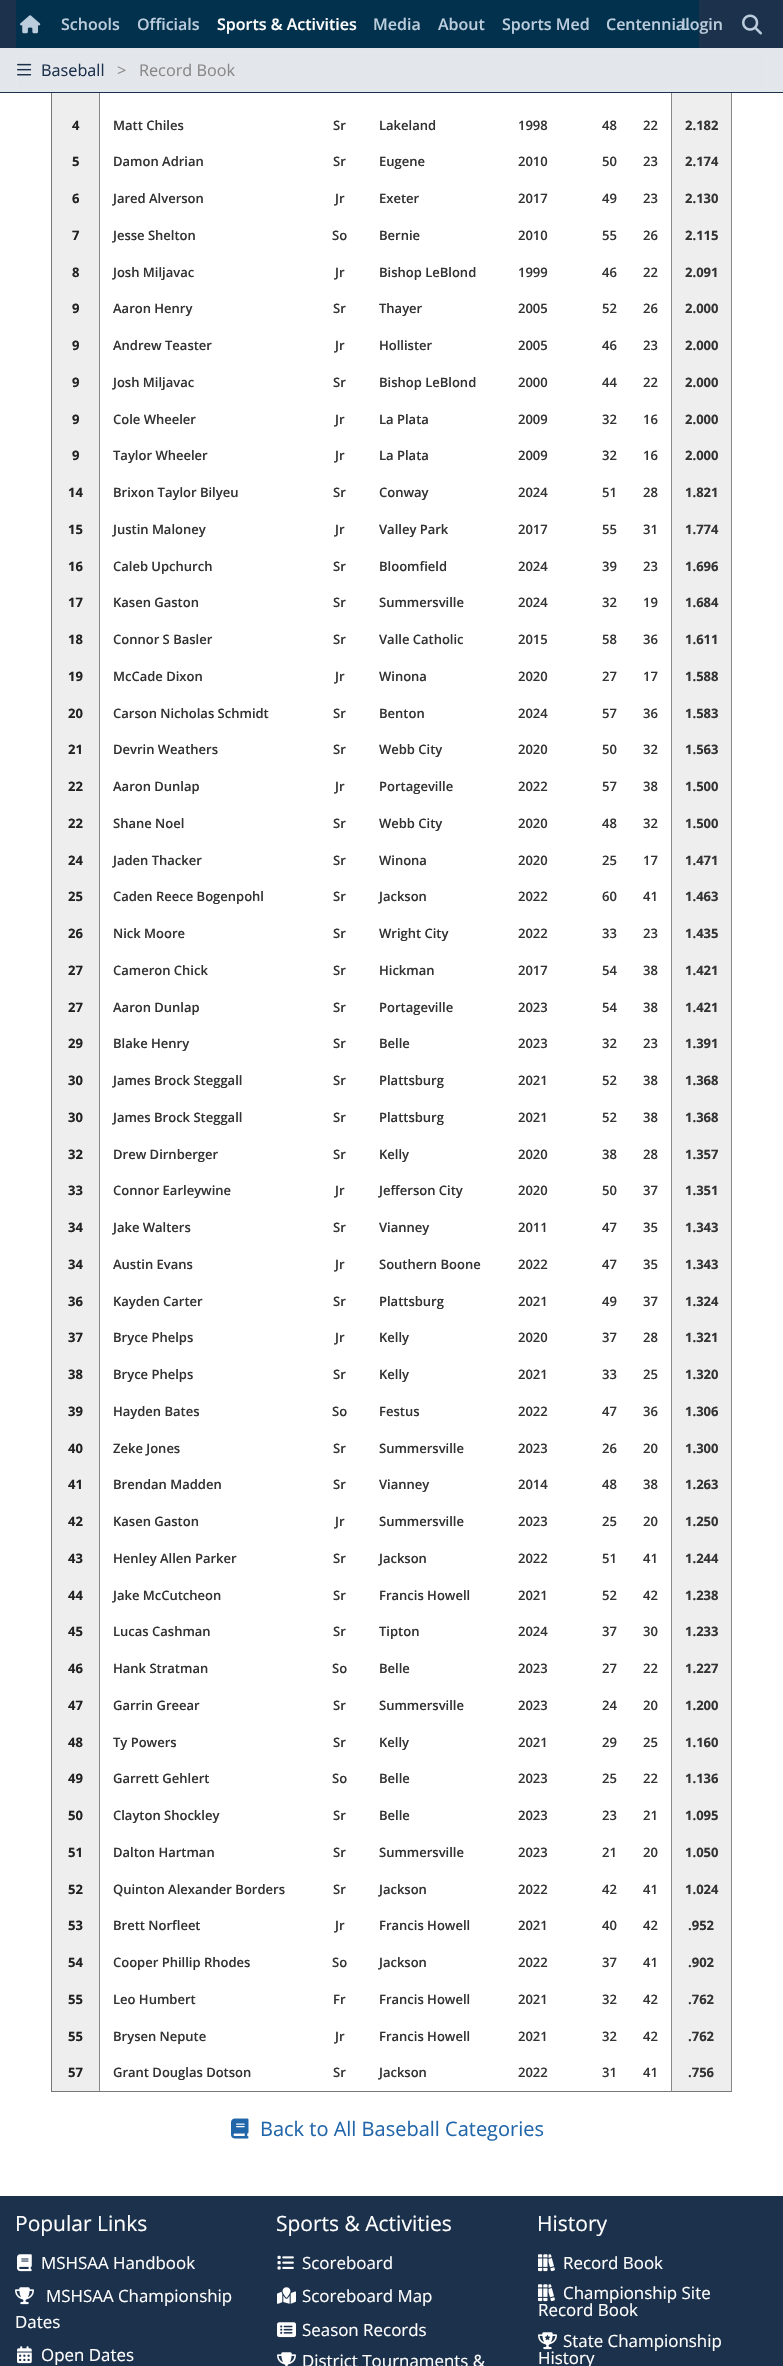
#include "include/core/SkBlurTypes.h"
#include "include/core/SkCanvas.h"
#include "include/core/SkData.h"
#include "include/core/SkFont.h"
#include "include/core/SkFontMgr.h"
#include "include/core/SkImage.h"
#include "include/core/SkMaskFilter.h"
#include "include/core/SkPaint.h"
#include "include/core/SkPathBuilder.h"
#include "include/core/SkTextBlob.h"
#include "include/effects/SkDashPathEffect.h"
#include "include/effects/SkGradientShader.h"
#include "include/utils/SkParsePath.h"

extern sk_sp<SkFontMgr> fontMgr;

void draw(SkCanvas* canvas) {
    SkPaint p;
    p.setAntiAlias(true);
    auto font = [&](const char* family, int weight, float size, bool italic = false) {
        SkFontStyle style(weight, SkFontStyle::kNormal_Width,
            italic ? SkFontStyle::kItalic_Slant : SkFontStyle::kUpright_Slant);
        SkFont result(fontMgr->matchFamilyStyle(family, style), size);
        result.setSubpixel(true);
        return result;
    };
    auto drawPhoto = [&](const char* path, float l, float t, float r, float b) {
        auto image = SkImages::DeferredFromEncodedData(SkData::MakeFromFileName(path));
        canvas->drawImageRect(image, SkRect::MakeLTRB(l, t, r, b), SkSamplingOptions());
    };
    canvas->clear(0xFFFFFFFF);
    p.setColor(0xFF1C314C);
    canvas->drawRect(SkRect::MakeLTRB(0, 0, 783, 48), p);
    p.setColor(0xFF01314C);
    canvas->drawRect(SkRect::MakeLTRB(16, 0, 699, 48), p);
    drawPhoto("media/1.png", 20, 15, 41, 34);
    auto font1 = font("Open Sans", 600, 16);
    p.setColor(0xFFBBCCDD);
    canvas->drawString("Schools", 61, 30, font1, p);
    canvas->drawString("Officials", 137, 30, font1, p);
    p.setColor(0xFFFFFFFF);
    canvas->drawString("Sports & Activities", 217, 30, font1, p);
    p.setColor(0xFFBBCCDD);
    {
        const struct { const char* s; float x, y; } items[] = {
            {"Media", 373, 30},
            {"About", 438, 30},
            {"Sports Med", 502, 30},
            {"Centennial", 606, 30},
            {"Login", 681, 30},
        };
        for (auto [s, x, y] : items) {
            canvas->drawString(s, x, y, font1, p);
        }
    }
    drawPhoto("media/2.png", 742, 14, 762, 35);
    p.setColor(0xFFE3E6EA);
    canvas->drawRect(SkRect::MakeLTRB(0, 48, 783, 92), p);
    p.setColor(0xFF1C314C);
    canvas->drawRect(SkRect::MakeLTRB(0, 92, 783, 93), p);
    p.setStyle(SkPaint::kStroke_Style);
    p.setStrokeWidth(1);
    p.setColor(0xFFE6E9EC);
    canvas->drawRoundRect(SkRect::MakeLTRB(16.5f, 51.5f, 766.5f, 89.5f), 3.5f, 3.5f, p);
    drawPhoto("media/3.png", 17, 63, 32, 76);
    auto font2 = font("Open Sans", 400, 16.25f);
    p.setStyle(SkPaint::kFill_Style);
    p.setColor(0xFF1C314C);
    canvas->drawString("Baseball", 41, 76, font2, p);
    p.setColor(0xFF888888);
    canvas->drawString(">   Record Book", 117, 76, font2, p);
    {
        const struct { float l, t, r, b; SkColor color; } items[] = {
            {51, 2091, 732, 2092, 0xFF777777},
            {52, 93, 99, 106, 0xFFEEEEEE},
            {672, 93, 731, 2091, 0xFFEEEEEE},
            {671, 2054, 672, 2092, 0xFF888888},
            {671, 2054, 672, 2055, 0xFFFFFFFF},
            {671, 2017, 672, 2055, 0xFF888888},
            {671, 2017, 672, 2018, 0xFFFFFFFF},
            {671, 1980, 672, 2018, 0xFF888888},
            {671, 1980, 672, 1981, 0xFFFFFFFF},
            {671, 1944, 672, 1981, 0xFF888888},
            {671, 1944, 672, 1945, 0xFFFFFFFF},
            {671, 1907, 672, 1945, 0xFF888888},
            {671, 1907, 672, 1908, 0xFFFFFFFF},
            {671, 1870, 672, 1908, 0xFF888888},
            {671, 1870, 672, 1871, 0xFFFFFFFF},
            {671, 1833, 672, 1871, 0xFF888888},
            {671, 1833, 672, 1834, 0xFFFFFFFF},
            {671, 1797, 672, 1834, 0xFF888888},
            {671, 1797, 672, 1798, 0xFFFFFFFF},
            {671, 1760, 672, 1798, 0xFF888888},
            {671, 1760, 672, 1761, 0xFFFFFFFF},
            {671, 1723, 672, 1761, 0xFF888888},
            {671, 1723, 672, 1724, 0xFFFFFFFF},
            {671, 1686, 672, 1724, 0xFF888888},
            {671, 1686, 672, 1687, 0xFFFFFFFF},
            {671, 1650, 672, 1687, 0xFF888888},
            {671, 1650, 672, 1651, 0xFFFFFFFF},
            {671, 1613, 672, 1651, 0xFF888888},
            {671, 1613, 672, 1614, 0xFFFFFFFF},
            {671, 1576, 672, 1614, 0xFF888888},
            {671, 1576, 672, 1577, 0xFFFFFFFF},
            {671, 1539, 672, 1577, 0xFF888888},
            {671, 1539, 672, 1540, 0xFFFFFFFF},
            {671, 1503, 672, 1540, 0xFF888888},
            {671, 1503, 672, 1504, 0xFFFFFFFF},
            {671, 1466, 672, 1504, 0xFF888888},
            {671, 1466, 672, 1467, 0xFFFFFFFF},
            {671, 1429, 672, 1467, 0xFF888888},
            {671, 1429, 672, 1430, 0xFFFFFFFF},
            {671, 1392, 672, 1430, 0xFF888888},
            {671, 1392, 672, 1393, 0xFFFFFFFF},
            {671, 1356, 672, 1393, 0xFF888888},
            {671, 1356, 672, 1357, 0xFFFFFFFF},
            {671, 1319, 672, 1357, 0xFF888888},
            {671, 1319, 672, 1320, 0xFFFFFFFF},
            {671, 1282, 672, 1320, 0xFF888888},
            {671, 1282, 672, 1283, 0xFFFFFFFF},
            {671, 1245, 672, 1283, 0xFF888888},
            {671, 1245, 672, 1246, 0xFFFFFFFF},
            {671, 1209, 672, 1246, 0xFF888888},
            {671, 1209, 672, 1210, 0xFFFFFFFF},
            {671, 1172, 672, 1210, 0xFF888888},
            {671, 1172, 672, 1173, 0xFFFFFFFF},
            {671, 1135, 672, 1173, 0xFF888888},
            {671, 1135, 672, 1136, 0xFFFFFFFF},
            {671, 1098, 672, 1136, 0xFF888888},
            {671, 1098, 672, 1099, 0xFFFFFFFF},
            {671, 1062, 672, 1099, 0xFF888888},
            {671, 1062, 672, 1063, 0xFFFFFFFF},
            {671, 1025, 672, 1063, 0xFF888888},
            {671, 1025, 672, 1026, 0xFFFFFFFF},
            {671, 988, 672, 1026, 0xFF888888},
            {671, 988, 672, 989, 0xFFFFFFFF},
            {671, 951, 672, 989, 0xFF888888},
            {671, 951, 672, 952, 0xFFFFFFFF},
            {671, 915, 672, 952, 0xFF888888},
            {671, 915, 672, 916, 0xFFFFFFFF},
            {671, 878, 672, 916, 0xFF888888},
            {671, 878, 672, 879, 0xFFFFFFFF},
            {671, 841, 672, 879, 0xFF888888},
            {671, 841, 672, 842, 0xFFFFFFFF},
            {671, 804, 672, 842, 0xFF888888},
            {671, 804, 672, 805, 0xFFFFFFFF},
            {671, 768, 672, 805, 0xFF888888},
            {671, 768, 672, 769, 0xFFFFFFFF},
            {671, 731, 672, 769, 0xFF888888},
            {671, 731, 672, 732, 0xFFFFFFFF},
            {671, 694, 672, 732, 0xFF888888},
            {671, 694, 672, 695, 0xFFFFFFFF},
            {671, 657, 672, 695, 0xFF888888},
            {671, 657, 672, 658, 0xFFFFFFFF},
            {671, 621, 672, 658, 0xFF888888},
            {671, 621, 672, 622, 0xFFFFFFFF},
            {671, 584, 672, 622, 0xFF888888},
            {671, 584, 672, 585, 0xFFFFFFFF},
            {671, 547, 672, 585, 0xFF888888},
            {671, 547, 672, 548, 0xFFFFFFFF},
            {671, 510, 672, 548, 0xFF888888},
            {671, 510, 672, 511, 0xFFFFFFFF},
            {671, 474, 672, 511, 0xFF888888},
            {671, 474, 672, 475, 0xFFFFFFFF},
            {671, 437, 672, 475, 0xFF888888},
            {671, 437, 672, 438, 0xFFFFFFFF},
            {671, 400, 672, 438, 0xFF888888},
            {671, 400, 672, 401, 0xFFFFFFFF},
            {671, 363, 672, 401, 0xFF888888},
            {671, 363, 672, 364, 0xFFFFFFFF},
            {671, 327, 672, 364, 0xFF888888},
            {671, 327, 672, 328, 0xFFFFFFFF},
            {671, 290, 672, 328, 0xFF888888},
            {671, 290, 672, 291, 0xFFFFFFFF},
            {671, 253, 672, 291, 0xFF888888},
            {671, 253, 672, 254, 0xFFFFFFFF},
            {671, 216, 672, 254, 0xFF888888},
            {671, 216, 672, 217, 0xFFFFFFFF},
            {671, 180, 672, 217, 0xFF888888},
            {671, 180, 672, 181, 0xFFFFFFFF},
            {671, 143, 672, 181, 0xFF888888},
            {671, 143, 672, 144, 0xFFFFFFFF},
            {671, 106, 672, 144, 0xFF888888},
            {671, 106, 672, 107, 0xFFFFFFFF},
            {671, 93, 672, 107, 0xFF888888},
            {52, 107, 99, 143, 0xFFEEEEEE},
            {51, 106, 100, 107, 0xFFEEEEEE},
            {51, 143, 100, 144, 0xFFEEEEEE},
            {51, 180, 100, 181, 0xFFEEEEEE},
            {51, 216, 100, 217, 0xFFEEEEEE},
            {51, 253, 100, 254, 0xFFEEEEEE},
            {51, 290, 100, 291, 0xFFEEEEEE},
            {51, 327, 100, 328, 0xFFEEEEEE},
            {51, 363, 100, 364, 0xFFEEEEEE},
            {51, 400, 100, 401, 0xFFEEEEEE},
            {51, 437, 100, 438, 0xFFEEEEEE},
            {51, 474, 100, 475, 0xFFEEEEEE},
            {51, 510, 100, 511, 0xFFEEEEEE},
            {51, 547, 100, 548, 0xFFEEEEEE},
            {51, 584, 100, 585, 0xFFEEEEEE},
            {51, 621, 100, 622, 0xFFEEEEEE},
            {51, 657, 100, 658, 0xFFEEEEEE},
            {51, 694, 100, 695, 0xFFEEEEEE},
            {51, 731, 100, 732, 0xFFEEEEEE},
            {51, 768, 100, 769, 0xFFEEEEEE},
            {51, 804, 100, 805, 0xFFEEEEEE},
            {51, 841, 100, 842, 0xFFEEEEEE},
            {51, 878, 100, 879, 0xFFEEEEEE},
            {51, 915, 100, 916, 0xFFEEEEEE},
            {51, 951, 100, 952, 0xFFEEEEEE},
            {51, 988, 100, 989, 0xFFEEEEEE},
            {51, 1025, 100, 1026, 0xFFEEEEEE},
            {51, 1062, 100, 1063, 0xFFEEEEEE},
            {51, 1098, 100, 1099, 0xFFEEEEEE},
            {51, 1135, 100, 1136, 0xFFEEEEEE},
            {51, 1172, 100, 1173, 0xFFEEEEEE},
            {51, 1209, 100, 1210, 0xFFEEEEEE},
            {51, 1245, 100, 1246, 0xFFEEEEEE},
            {51, 1282, 100, 1283, 0xFFEEEEEE},
            {51, 1319, 100, 1320, 0xFFEEEEEE},
            {51, 1356, 100, 1357, 0xFFEEEEEE},
            {51, 1392, 100, 1393, 0xFFEEEEEE},
            {51, 1429, 100, 1430, 0xFFEEEEEE},
            {51, 1466, 100, 1467, 0xFFEEEEEE},
            {51, 1503, 100, 1504, 0xFFEEEEEE},
            {51, 1539, 100, 1540, 0xFFEEEEEE},
            {51, 1576, 100, 1577, 0xFFEEEEEE},
            {51, 1613, 100, 1614, 0xFFEEEEEE},
            {51, 1650, 100, 1651, 0xFFEEEEEE},
            {51, 1686, 100, 1687, 0xFFEEEEEE},
            {51, 1723, 100, 1724, 0xFFEEEEEE},
            {51, 1760, 100, 1761, 0xFFEEEEEE},
            {51, 1797, 100, 1798, 0xFFEEEEEE},
            {51, 1833, 100, 1834, 0xFFEEEEEE},
            {51, 1870, 100, 1871, 0xFFEEEEEE},
            {51, 1907, 100, 1908, 0xFFEEEEEE},
            {51, 1944, 100, 1945, 0xFFEEEEEE},
            {51, 1980, 100, 1981, 0xFFEEEEEE},
            {51, 2017, 100, 2018, 0xFFEEEEEE},
            {51, 2054, 100, 2055, 0xFFEEEEEE},
            {99, 2054, 100, 2092, 0xFF888888},
            {99, 2017, 100, 2055, 0xFF888888},
            {99, 1980, 100, 2018, 0xFF888888},
            {99, 1944, 100, 1981, 0xFF888888},
            {99, 1907, 100, 1945, 0xFF888888},
            {99, 1870, 100, 1908, 0xFF888888},
            {99, 1833, 100, 1871, 0xFF888888},
            {99, 1797, 100, 1834, 0xFF888888},
            {99, 1760, 100, 1798, 0xFF888888},
            {99, 1723, 100, 1761, 0xFF888888},
            {99, 1686, 100, 1724, 0xFF888888},
            {99, 1650, 100, 1687, 0xFF888888},
            {99, 1613, 100, 1651, 0xFF888888},
            {99, 1576, 100, 1614, 0xFF888888},
            {99, 1539, 100, 1577, 0xFF888888},
            {99, 1503, 100, 1540, 0xFF888888},
            {99, 1466, 100, 1504, 0xFF888888},
            {99, 1429, 100, 1467, 0xFF888888},
            {99, 1392, 100, 1430, 0xFF888888},
            {99, 1356, 100, 1393, 0xFF888888},
            {99, 1319, 100, 1357, 0xFF888888},
            {99, 1282, 100, 1320, 0xFF888888},
            {99, 1245, 100, 1283, 0xFF888888},
            {99, 1209, 100, 1246, 0xFF888888},
            {99, 1172, 100, 1210, 0xFF888888},
            {99, 1135, 100, 1173, 0xFF888888},
            {99, 1098, 100, 1136, 0xFF888888},
            {99, 1062, 100, 1099, 0xFF888888},
            {99, 1025, 100, 1063, 0xFF888888},
            {99, 988, 100, 1026, 0xFF888888},
            {99, 951, 100, 989, 0xFF888888},
            {99, 915, 100, 952, 0xFF888888},
            {99, 878, 100, 916, 0xFF888888},
            {99, 841, 100, 879, 0xFF888888},
            {99, 804, 100, 842, 0xFF888888},
            {99, 768, 100, 805, 0xFF888888},
            {99, 731, 100, 769, 0xFF888888},
            {99, 694, 100, 732, 0xFF888888},
            {99, 657, 100, 695, 0xFF888888},
            {99, 621, 100, 658, 0xFF888888},
            {99, 584, 100, 622, 0xFF888888},
            {99, 547, 100, 585, 0xFF888888},
            {99, 510, 100, 548, 0xFF888888},
            {99, 474, 100, 511, 0xFF888888},
            {99, 437, 100, 475, 0xFF888888},
            {99, 400, 100, 438, 0xFF888888},
            {99, 363, 100, 401, 0xFF888888},
            {99, 327, 100, 364, 0xFF888888},
            {99, 290, 100, 328, 0xFF888888},
            {99, 253, 100, 291, 0xFF888888},
            {99, 216, 100, 254, 0xFF888888},
            {99, 180, 100, 217, 0xFF888888},
            {99, 143, 100, 181, 0xFF888888},
            {99, 93, 100, 144, 0xFF888888},
            {51, 2054, 52, 2092, 0xFF777777},
            {51, 2017, 52, 2055, 0xFF777777},
            {51, 1980, 52, 2018, 0xFF777777},
            {51, 1944, 52, 1981, 0xFF777777},
            {51, 1907, 52, 1945, 0xFF777777},
            {51, 1870, 52, 1908, 0xFF777777},
            {51, 1833, 52, 1871, 0xFF777777},
            {51, 1797, 52, 1834, 0xFF777777},
            {51, 1760, 52, 1798, 0xFF777777},
            {51, 1723, 52, 1761, 0xFF777777},
            {51, 1686, 52, 1724, 0xFF777777},
            {51, 1650, 52, 1687, 0xFF777777},
            {51, 1613, 52, 1651, 0xFF777777},
            {51, 1576, 52, 1614, 0xFF777777},
            {51, 1539, 52, 1577, 0xFF777777},
            {51, 1503, 52, 1540, 0xFF777777},
            {51, 1466, 52, 1504, 0xFF777777},
            {51, 1429, 52, 1467, 0xFF777777},
            {51, 1392, 52, 1430, 0xFF777777},
            {51, 1356, 52, 1393, 0xFF777777},
            {51, 1319, 52, 1357, 0xFF777777},
            {51, 1282, 52, 1320, 0xFF777777},
            {51, 1245, 52, 1283, 0xFF777777},
            {51, 1209, 52, 1246, 0xFF777777},
            {51, 1172, 52, 1210, 0xFF777777},
            {51, 1135, 52, 1173, 0xFF777777},
            {51, 1098, 52, 1136, 0xFF777777},
            {51, 1062, 52, 1099, 0xFF777777},
            {51, 1025, 52, 1063, 0xFF777777},
            {51, 988, 52, 1026, 0xFF777777},
            {51, 951, 52, 989, 0xFF777777},
            {51, 915, 52, 952, 0xFF777777},
            {51, 878, 52, 916, 0xFF777777},
            {51, 841, 52, 879, 0xFF777777},
            {51, 804, 52, 842, 0xFF777777},
            {51, 768, 52, 805, 0xFF777777},
            {51, 731, 52, 769, 0xFF777777},
            {51, 694, 52, 732, 0xFF777777},
            {51, 657, 52, 695, 0xFF777777},
            {51, 621, 52, 658, 0xFF777777},
            {51, 584, 52, 622, 0xFF777777},
            {51, 547, 52, 585, 0xFF777777},
            {51, 510, 52, 548, 0xFF777777},
            {51, 474, 52, 511, 0xFF777777},
            {51, 437, 52, 475, 0xFF777777},
            {51, 400, 52, 438, 0xFF777777},
            {51, 363, 52, 401, 0xFF777777},
            {51, 327, 52, 364, 0xFF777777},
            {51, 290, 52, 328, 0xFF777777},
            {51, 253, 52, 291, 0xFF777777},
            {51, 216, 52, 254, 0xFF777777},
            {51, 180, 52, 217, 0xFF777777},
            {51, 143, 52, 181, 0xFF777777},
            {51, 93, 52, 144, 0xFF777777},
        };
        for (auto [l, t, r, b, color] : items) {
            p.setColor(color);
            canvas->drawRect(SkRect::MakeLTRB(l, t, r, b), p);
        }
    }
    auto font3 = font("Open Sans", 700, 13);
    p.setColor(0xFF222222);
    canvas->drawString("4", 72, 130, font3, p);
    auto font4 = font("Open Sans", 600, 13);
    p.setColor(0xFF333333);
    {
        const struct { const char* s; float x, y; } items[] = {
            {"Matt Chiles", 113, 130},
            {"Sr", 333, 130},
            {"Lakeland", 379, 130},
            {"1998", 518, 130},
            {"48", 602, 130},
            {"22", 643, 130},
        };
        for (auto [s, x, y] : items) {
            canvas->drawString(s, x, y, font4, p);
        }
    }
    canvas->drawString("2.182", 685, 130, font3, p);
    p.setColor(0xFFEEEEEE);
    canvas->drawRect(SkRect::MakeLTRB(52, 144, 99, 180), p);
    p.setColor(0xFF222222);
    canvas->drawString("5", 72, 166, font3, p);
    p.setColor(0xFF333333);
    {
        const struct { const char* s; float x, y; } items[] = {
            {"Damon Adrian", 113, 166},
            {"Sr", 333, 166},
            {"Eugene", 379, 166},
            {"2010", 518, 166},
            {"50", 602, 166},
            {"23", 643, 166},
        };
        for (auto [s, x, y] : items) {
            canvas->drawString(s, x, y, font4, p);
        }
    }
    canvas->drawString("2.174", 685, 166, font3, p);
    p.setColor(0xFFEEEEEE);
    canvas->drawRect(SkRect::MakeLTRB(52, 181, 99, 216), p);
    p.setColor(0xFF222222);
    canvas->drawString("6", 72, 203, font3, p);
    p.setColor(0xFF333333);
    {
        const struct { const char* s; float x, y; } items[] = {
            {"Jared Alverson", 113, 203},
            {"Jr", 335, 203},
            {"Exeter", 379, 203},
            {"2017", 518, 203},
            {"49", 602, 203},
            {"23", 643, 203},
        };
        for (auto [s, x, y] : items) {
            canvas->drawString(s, x, y, font4, p);
        }
    }
    canvas->drawString("2.130", 685, 203, font3, p);
    p.setColor(0xFFEEEEEE);
    canvas->drawRect(SkRect::MakeLTRB(52, 217, 99, 253), p);
    p.setColor(0xFF222222);
    canvas->drawString("7", 72, 240, font3, p);
    p.setColor(0xFF333333);
    {
        const struct { const char* s; float x, y; } items[] = {
            {"Jesse Shelton", 113, 240},
            {"So", 332, 240},
            {"Bernie", 379, 240},
            {"2010", 518, 240},
            {"55", 602, 240},
            {"26", 643, 240},
        };
        for (auto [s, x, y] : items) {
            canvas->drawString(s, x, y, font4, p);
        }
    }
    canvas->drawString("2.115", 685, 240, font3, p);
    p.setColor(0xFFEEEEEE);
    canvas->drawRect(SkRect::MakeLTRB(52, 254, 99, 290), p);
    p.setColor(0xFF222222);
    canvas->drawString("8", 72, 277, font3, p);
    p.setColor(0xFF333333);
    {
        const struct { const char* s; float x, y; } items[] = {
            {"Josh Miljavac", 113, 277},
            {"Jr", 335, 277},
            {"Bishop LeBlond", 379, 277},
            {"1999", 518, 277},
            {"46", 602, 277},
            {"22", 643, 277},
        };
        for (auto [s, x, y] : items) {
            canvas->drawString(s, x, y, font4, p);
        }
    }
    canvas->drawString("2.091", 685, 277, font3, p);
    p.setColor(0xFFEEEEEE);
    canvas->drawRect(SkRect::MakeLTRB(52, 291, 99, 327), p);
    p.setColor(0xFF222222);
    canvas->drawString("9", 72, 313, font3, p);
    p.setColor(0xFF333333);
    {
        const struct { const char* s; float x, y; } items[] = {
            {"Aaron Henry", 113, 313},
            {"Sr", 333, 313},
            {"Thayer", 379, 313},
            {"2005", 518, 313},
            {"52", 602, 313},
            {"26", 643, 313},
        };
        for (auto [s, x, y] : items) {
            canvas->drawString(s, x, y, font4, p);
        }
    }
    canvas->drawString("2.000", 685, 313, font3, p);
    p.setColor(0xFFEEEEEE);
    canvas->drawRect(SkRect::MakeLTRB(52, 328, 99, 363), p);
    p.setColor(0xFF222222);
    canvas->drawString("9", 72, 350, font3, p);
    p.setColor(0xFF333333);
    {
        const struct { const char* s; float x, y; } items[] = {
            {"Andrew Teaster", 113, 350},
            {"Jr", 335, 350},
            {"Hollister", 379, 350},
            {"2005", 518, 350},
            {"46", 602, 350},
            {"23", 643, 350},
        };
        for (auto [s, x, y] : items) {
            canvas->drawString(s, x, y, font4, p);
        }
    }
    canvas->drawString("2.000", 685, 350, font3, p);
    p.setColor(0xFFEEEEEE);
    canvas->drawRect(SkRect::MakeLTRB(52, 364, 99, 400), p);
    p.setColor(0xFF222222);
    canvas->drawString("9", 72, 387, font3, p);
    p.setColor(0xFF333333);
    {
        const struct { const char* s; float x, y; } items[] = {
            {"Josh Miljavac", 113, 387},
            {"Sr", 333, 387},
            {"Bishop LeBlond", 379, 387},
            {"2000", 518, 387},
            {"44", 602, 387},
            {"22", 643, 387},
        };
        for (auto [s, x, y] : items) {
            canvas->drawString(s, x, y, font4, p);
        }
    }
    canvas->drawString("2.000", 685, 387, font3, p);
    p.setColor(0xFFEEEEEE);
    canvas->drawRect(SkRect::MakeLTRB(52, 401, 99, 437), p);
    p.setColor(0xFF222222);
    canvas->drawString("9", 72, 424, font3, p);
    p.setColor(0xFF333333);
    {
        const struct { const char* s; float x, y; } items[] = {
            {"Cole Wheeler", 113, 424},
            {"Jr", 335, 424},
            {"La Plata", 379, 424},
            {"2009", 518, 424},
            {"32", 602, 424},
            {"16", 643, 424},
        };
        for (auto [s, x, y] : items) {
            canvas->drawString(s, x, y, font4, p);
        }
    }
    canvas->drawString("2.000", 685, 424, font3, p);
    p.setColor(0xFFEEEEEE);
    canvas->drawRect(SkRect::MakeLTRB(52, 438, 99, 474), p);
    p.setColor(0xFF222222);
    canvas->drawString("9", 72, 460, font3, p);
    p.setColor(0xFF333333);
    {
        const struct { const char* s; float x, y; } items[] = {
            {"Taylor Wheeler", 113, 460},
            {"Jr", 335, 460},
            {"La Plata", 379, 460},
            {"2009", 518, 460},
            {"32", 602, 460},
            {"16", 643, 460},
        };
        for (auto [s, x, y] : items) {
            canvas->drawString(s, x, y, font4, p);
        }
    }
    canvas->drawString("2.000", 685, 460, font3, p);
    p.setColor(0xFFEEEEEE);
    canvas->drawRect(SkRect::MakeLTRB(52, 475, 99, 510), p);
    p.setColor(0xFF222222);
    canvas->drawString("14", 68, 497, font3, p);
    p.setColor(0xFF333333);
    {
        const struct { const char* s; float x, y; } items[] = {
            {"Brixon Taylor Bilyeu", 113, 497},
            {"Sr", 333, 497},
            {"Conway", 379, 497},
            {"2024", 518, 497},
            {"51", 602, 497},
            {"28", 643, 497},
        };
        for (auto [s, x, y] : items) {
            canvas->drawString(s, x, y, font4, p);
        }
    }
    canvas->drawString("1.821", 685, 497, font3, p);
    p.setColor(0xFFEEEEEE);
    canvas->drawRect(SkRect::MakeLTRB(52, 511, 99, 547), p);
    p.setColor(0xFF222222);
    canvas->drawString("15", 68, 534, font3, p);
    p.setColor(0xFF333333);
    {
        const struct { const char* s; float x, y; } items[] = {
            {"Justin Maloney", 113, 534},
            {"Jr", 335, 534},
            {"Valley Park", 379, 534},
            {"2017", 518, 534},
            {"55", 602, 534},
            {"31", 643, 534},
        };
        for (auto [s, x, y] : items) {
            canvas->drawString(s, x, y, font4, p);
        }
    }
    canvas->drawString("1.774", 685, 534, font3, p);
    p.setColor(0xFFEEEEEE);
    canvas->drawRect(SkRect::MakeLTRB(52, 548, 99, 584), p);
    p.setColor(0xFF222222);
    canvas->drawString("16", 68, 571, font3, p);
    p.setColor(0xFF333333);
    {
        const struct { const char* s; float x, y; } items[] = {
            {"Caleb Upchurch", 113, 571},
            {"Sr", 333, 571},
            {"Bloomfield", 379, 571},
            {"2024", 518, 571},
            {"39", 602, 571},
            {"23", 643, 571},
        };
        for (auto [s, x, y] : items) {
            canvas->drawString(s, x, y, font4, p);
        }
    }
    canvas->drawString("1.696", 685, 571, font3, p);
    p.setColor(0xFFEEEEEE);
    canvas->drawRect(SkRect::MakeLTRB(52, 585, 99, 621), p);
    p.setColor(0xFF222222);
    canvas->drawString("17", 68, 607, font3, p);
    p.setColor(0xFF333333);
    {
        const struct { const char* s; float x, y; } items[] = {
            {"Kasen Gaston", 113, 607},
            {"Sr", 333, 607},
            {"Summersville", 379, 607},
            {"2024", 518, 607},
            {"32", 602, 607},
            {"19", 643, 607},
        };
        for (auto [s, x, y] : items) {
            canvas->drawString(s, x, y, font4, p);
        }
    }
    p.setColor(0xFF888888);
    canvas->drawRect(SkRect::MakeLTRB(731, 621, 732, 2092), p);
    canvas->drawRect(SkRect::MakeLTRB(731, 93, 732, 622), p);
    p.setColor(0xFF333333);
    canvas->drawString("1.684", 685, 607, font3, p);
    p.setColor(0xFFEEEEEE);
    canvas->drawRect(SkRect::MakeLTRB(52, 622, 99, 657), p);
    p.setColor(0xFF222222);
    canvas->drawString("18", 68, 644, font3, p);
    p.setColor(0xFF333333);
    {
        const struct { const char* s; float x, y; } items[] = {
            {"Connor S Basler", 113, 644},
            {"Sr", 333, 644},
            {"Valle Catholic", 379, 644},
            {"2015", 518, 644},
            {"58", 602, 644},
            {"36", 643, 644},
        };
        for (auto [s, x, y] : items) {
            canvas->drawString(s, x, y, font4, p);
        }
    }
    canvas->drawString("1.611", 685, 644, font3, p);
    p.setColor(0xFFEEEEEE);
    canvas->drawRect(SkRect::MakeLTRB(52, 658, 99, 694), p);
    p.setColor(0xFF222222);
    canvas->drawString("19", 68, 681, font3, p);
    p.setColor(0xFF333333);
    {
        const struct { const char* s; float x, y; } items[] = {
            {"McCade Dixon", 113, 681},
            {"Jr", 335, 681},
            {"Winona", 379, 681},
            {"2020", 518, 681},
            {"27", 602, 681},
            {"17", 643, 681},
        };
        for (auto [s, x, y] : items) {
            canvas->drawString(s, x, y, font4, p);
        }
    }
    canvas->drawString("1.588", 685, 681, font3, p);
    p.setColor(0xFFEEEEEE);
    canvas->drawRect(SkRect::MakeLTRB(52, 695, 99, 731), p);
    p.setColor(0xFF222222);
    canvas->drawString("20", 68, 718, font3, p);
    p.setColor(0xFF333333);
    {
        const struct { const char* s; float x, y; } items[] = {
            {"Carson Nicholas Schmidt", 113, 718},
            {"Sr", 333, 718},
            {"Benton", 379, 718},
            {"2024", 518, 718},
            {"57", 602, 718},
            {"36", 643, 718},
        };
        for (auto [s, x, y] : items) {
            canvas->drawString(s, x, y, font4, p);
        }
    }
    canvas->drawString("1.583", 685, 718, font3, p);
    p.setColor(0xFFEEEEEE);
    canvas->drawRect(SkRect::MakeLTRB(52, 732, 99, 768), p);
    p.setColor(0xFF222222);
    canvas->drawString("21", 68, 754, font3, p);
    p.setColor(0xFF333333);
    {
        const struct { const char* s; float x, y; } items[] = {
            {"Devrin Weathers", 113, 754},
            {"Sr", 333, 754},
            {"Webb City", 379, 754},
            {"2020", 518, 754},
            {"50", 602, 754},
            {"32", 643, 754},
        };
        for (auto [s, x, y] : items) {
            canvas->drawString(s, x, y, font4, p);
        }
    }
    canvas->drawString("1.563", 685, 754, font3, p);
    p.setColor(0xFFEEEEEE);
    canvas->drawRect(SkRect::MakeLTRB(52, 769, 99, 804), p);
    p.setColor(0xFF222222);
    canvas->drawString("22", 68, 791, font3, p);
    p.setColor(0xFF333333);
    {
        const struct { const char* s; float x, y; } items[] = {
            {"Aaron Dunlap", 113, 791},
            {"Jr", 335, 791},
            {"Portageville", 379, 791},
            {"2022", 518, 791},
            {"57", 602, 791},
            {"38", 643, 791},
        };
        for (auto [s, x, y] : items) {
            canvas->drawString(s, x, y, font4, p);
        }
    }
    canvas->drawString("1.500", 685, 791, font3, p);
    p.setColor(0xFFEEEEEE);
    canvas->drawRect(SkRect::MakeLTRB(52, 805, 99, 841), p);
    p.setColor(0xFF222222);
    canvas->drawString("22", 68, 828, font3, p);
    p.setColor(0xFF333333);
    {
        const struct { const char* s; float x, y; } items[] = {
            {"Shane Noel", 113, 828},
            {"Sr", 333, 828},
            {"Webb City", 379, 828},
            {"2020", 518, 828},
            {"48", 602, 828},
            {"32", 643, 828},
        };
        for (auto [s, x, y] : items) {
            canvas->drawString(s, x, y, font4, p);
        }
    }
    canvas->drawString("1.500", 685, 828, font3, p);
    p.setColor(0xFFEEEEEE);
    canvas->drawRect(SkRect::MakeLTRB(52, 842, 99, 878), p);
    p.setColor(0xFF222222);
    canvas->drawString("24", 68, 865, font3, p);
    p.setColor(0xFF333333);
    {
        const struct { const char* s; float x, y; } items[] = {
            {"Jaden Thacker", 113, 865},
            {"Sr", 333, 865},
            {"Winona", 379, 865},
            {"2020", 518, 865},
            {"25", 602, 865},
            {"17", 643, 865},
        };
        for (auto [s, x, y] : items) {
            canvas->drawString(s, x, y, font4, p);
        }
    }
    canvas->drawString("1.471", 685, 865, font3, p);
    p.setColor(0xFFEEEEEE);
    canvas->drawRect(SkRect::MakeLTRB(52, 879, 99, 915), p);
    p.setColor(0xFF222222);
    canvas->drawString("25", 68, 901, font3, p);
    p.setColor(0xFF333333);
    {
        const struct { const char* s; float x, y; } items[] = {
            {"Caden Reece Bogenpohl", 113, 901},
            {"Sr", 333, 901},
            {"Jackson", 379, 901},
            {"2022", 518, 901},
            {"60", 602, 901},
            {"41", 643, 901},
        };
        for (auto [s, x, y] : items) {
            canvas->drawString(s, x, y, font4, p);
        }
    }
    canvas->drawString("1.463", 685, 901, font3, p);
    p.setColor(0xFFEEEEEE);
    canvas->drawRect(SkRect::MakeLTRB(52, 916, 99, 951), p);
    p.setColor(0xFF222222);
    canvas->drawString("26", 68, 938, font3, p);
    p.setColor(0xFF333333);
    {
        const struct { const char* s; float x, y; } items[] = {
            {"Nick Moore", 113, 938},
            {"Sr", 333, 938},
            {"Wright City", 379, 938},
            {"2022", 518, 938},
            {"33", 602, 938},
            {"23", 643, 938},
        };
        for (auto [s, x, y] : items) {
            canvas->drawString(s, x, y, font4, p);
        }
    }
    canvas->drawString("1.435", 685, 938, font3, p);
    p.setColor(0xFFEEEEEE);
    canvas->drawRect(SkRect::MakeLTRB(52, 952, 99, 988), p);
    p.setColor(0xFF222222);
    canvas->drawString("27", 68, 975, font3, p);
    p.setColor(0xFF333333);
    {
        const struct { const char* s; float x, y; } items[] = {
            {"Cameron Chick", 113, 975},
            {"Sr", 333, 975},
            {"Hickman", 379, 975},
            {"2017", 518, 975},
            {"54", 602, 975},
            {"38", 643, 975},
        };
        for (auto [s, x, y] : items) {
            canvas->drawString(s, x, y, font4, p);
        }
    }
    canvas->drawString("1.421", 685, 975, font3, p);
    p.setColor(0xFFEEEEEE);
    canvas->drawRect(SkRect::MakeLTRB(52, 989, 99, 1025), p);
    p.setColor(0xFF222222);
    canvas->drawString("27", 68, 1012, font3, p);
    p.setColor(0xFF333333);
    {
        const struct { const char* s; float x, y; } items[] = {
            {"Aaron Dunlap", 113, 1012},
            {"Sr", 333, 1012},
            {"Portageville", 379, 1012},
            {"2023", 518, 1012},
            {"54", 602, 1012},
            {"38", 643, 1012},
        };
        for (auto [s, x, y] : items) {
            canvas->drawString(s, x, y, font4, p);
        }
    }
    canvas->drawString("1.421", 685, 1012, font3, p);
    p.setColor(0xFFEEEEEE);
    canvas->drawRect(SkRect::MakeLTRB(52, 1026, 99, 1062), p);
    p.setColor(0xFF222222);
    canvas->drawString("29", 68, 1048, font3, p);
    p.setColor(0xFF333333);
    {
        const struct { const char* s; float x, y; } items[] = {
            {"Blake Henry", 113, 1048},
            {"Sr", 333, 1048},
            {"Belle", 379, 1048},
            {"2023", 518, 1048},
            {"32", 602, 1048},
            {"23", 643, 1048},
        };
        for (auto [s, x, y] : items) {
            canvas->drawString(s, x, y, font4, p);
        }
    }
    canvas->drawString("1.391", 685, 1048, font3, p);
    p.setColor(0xFFEEEEEE);
    canvas->drawRect(SkRect::MakeLTRB(52, 1063, 99, 1098), p);
    p.setColor(0xFF222222);
    canvas->drawString("30", 68, 1085, font3, p);
    p.setColor(0xFF333333);
    {
        const struct { const char* s; float x, y; } items[] = {
            {"James Brock Steggall", 113, 1085},
            {"Sr", 333, 1085},
            {"Plattsburg", 379, 1085},
            {"2021", 518, 1085},
            {"52", 602, 1085},
            {"38", 643, 1085},
        };
        for (auto [s, x, y] : items) {
            canvas->drawString(s, x, y, font4, p);
        }
    }
    canvas->drawString("1.368", 685, 1085, font3, p);
    p.setColor(0xFFEEEEEE);
    canvas->drawRect(SkRect::MakeLTRB(52, 1099, 99, 1135), p);
    p.setColor(0xFF222222);
    canvas->drawString("30", 68, 1122, font3, p);
    p.setColor(0xFF333333);
    {
        const struct { const char* s; float x, y; } items[] = {
            {"James Brock Steggall", 113, 1122},
            {"Sr", 333, 1122},
            {"Plattsburg", 379, 1122},
            {"2021", 518, 1122},
            {"52", 602, 1122},
            {"38", 643, 1122},
        };
        for (auto [s, x, y] : items) {
            canvas->drawString(s, x, y, font4, p);
        }
    }
    canvas->drawString("1.368", 685, 1122, font3, p);
    p.setColor(0xFFEEEEEE);
    canvas->drawRect(SkRect::MakeLTRB(52, 1136, 99, 1172), p);
    p.setColor(0xFF222222);
    canvas->drawString("32", 68, 1159, font3, p);
    p.setColor(0xFF333333);
    {
        const struct { const char* s; float x, y; } items[] = {
            {"Drew Dirnberger", 113, 1159},
            {"Sr", 333, 1159},
            {"Kelly", 379, 1159},
            {"2020", 518, 1159},
            {"38", 602, 1159},
            {"28", 643, 1159},
        };
        for (auto [s, x, y] : items) {
            canvas->drawString(s, x, y, font4, p);
        }
    }
    canvas->drawString("1.357", 685, 1159, font3, p);
    p.setColor(0xFFEEEEEE);
    canvas->drawRect(SkRect::MakeLTRB(52, 1173, 99, 1209), p);
    p.setColor(0xFF222222);
    canvas->drawString("33", 68, 1195, font3, p);
    p.setColor(0xFF333333);
    {
        const struct { const char* s; float x, y; } items[] = {
            {"Connor Earleywine", 113, 1195},
            {"Jr", 335, 1195},
            {"Jefferson City", 379, 1195},
            {"2020", 518, 1195},
            {"50", 602, 1195},
            {"37", 643, 1195},
        };
        for (auto [s, x, y] : items) {
            canvas->drawString(s, x, y, font4, p);
        }
    }
    canvas->drawString("1.351", 685, 1195, font3, p);
    p.setColor(0xFFEEEEEE);
    canvas->drawRect(SkRect::MakeLTRB(52, 1210, 99, 1245), p);
    p.setColor(0xFF222222);
    canvas->drawString("34", 68, 1232, font3, p);
    p.setColor(0xFF333333);
    {
        const struct { const char* s; float x, y; } items[] = {
            {"Jake Walters", 113, 1232},
            {"Sr", 333, 1232},
            {"Vianney", 379, 1232},
            {"2011", 518, 1232},
            {"47", 602, 1232},
            {"35", 643, 1232},
        };
        for (auto [s, x, y] : items) {
            canvas->drawString(s, x, y, font4, p);
        }
    }
    canvas->drawString("1.343", 685, 1232, font3, p);
    p.setColor(0xFFEEEEEE);
    canvas->drawRect(SkRect::MakeLTRB(52, 1246, 99, 1282), p);
    p.setColor(0xFF222222);
    canvas->drawString("34", 68, 1269, font3, p);
    p.setColor(0xFF333333);
    {
        const struct { const char* s; float x, y; } items[] = {
            {"Austin Evans", 113, 1269},
            {"Jr", 335, 1269},
            {"Southern Boone", 379, 1269},
            {"2022", 518, 1269},
            {"47", 602, 1269},
            {"35", 643, 1269},
        };
        for (auto [s, x, y] : items) {
            canvas->drawString(s, x, y, font4, p);
        }
    }
    canvas->drawString("1.343", 685, 1269, font3, p);
    p.setColor(0xFFEEEEEE);
    canvas->drawRect(SkRect::MakeLTRB(52, 1283, 99, 1319), p);
    p.setColor(0xFF222222);
    canvas->drawString("36", 68, 1306, font3, p);
    p.setColor(0xFF333333);
    {
        const struct { const char* s; float x, y; } items[] = {
            {"Kayden Carter", 113, 1306},
            {"Sr", 333, 1306},
            {"Plattsburg", 379, 1306},
            {"2021", 518, 1306},
            {"49", 602, 1306},
            {"37", 643, 1306},
        };
        for (auto [s, x, y] : items) {
            canvas->drawString(s, x, y, font4, p);
        }
    }
    canvas->drawString("1.324", 685, 1306, font3, p);
    p.setColor(0xFFEEEEEE);
    canvas->drawRect(SkRect::MakeLTRB(52, 1320, 99, 1356), p);
    p.setColor(0xFF222222);
    canvas->drawString("37", 68, 1342, font3, p);
    p.setColor(0xFF333333);
    {
        const struct { const char* s; float x, y; } items[] = {
            {"Bryce Phelps", 113, 1342},
            {"Jr", 335, 1342},
            {"Kelly", 379, 1342},
            {"2020", 518, 1342},
            {"37", 602, 1342},
            {"28", 643, 1342},
        };
        for (auto [s, x, y] : items) {
            canvas->drawString(s, x, y, font4, p);
        }
    }
    canvas->drawString("1.321", 685, 1342, font3, p);
    p.setColor(0xFFEEEEEE);
    canvas->drawRect(SkRect::MakeLTRB(52, 1357, 99, 1392), p);
    p.setColor(0xFF222222);
    canvas->drawString("38", 68, 1379, font3, p);
    p.setColor(0xFF333333);
    {
        const struct { const char* s; float x, y; } items[] = {
            {"Bryce Phelps", 113, 1379},
            {"Sr", 333, 1379},
            {"Kelly", 379, 1379},
            {"2021", 518, 1379},
            {"33", 602, 1379},
            {"25", 643, 1379},
        };
        for (auto [s, x, y] : items) {
            canvas->drawString(s, x, y, font4, p);
        }
    }
    canvas->drawString("1.320", 685, 1379, font3, p);
    p.setColor(0xFFEEEEEE);
    canvas->drawRect(SkRect::MakeLTRB(52, 1393, 99, 1429), p);
    p.setColor(0xFF222222);
    canvas->drawString("39", 68, 1416, font3, p);
    p.setColor(0xFF333333);
    {
        const struct { const char* s; float x, y; } items[] = {
            {"Hayden Bates", 113, 1416},
            {"So", 332, 1416},
            {"Festus", 379, 1416},
            {"2022", 518, 1416},
            {"47", 602, 1416},
            {"36", 643, 1416},
        };
        for (auto [s, x, y] : items) {
            canvas->drawString(s, x, y, font4, p);
        }
    }
    canvas->drawString("1.306", 685, 1416, font3, p);
    p.setColor(0xFFEEEEEE);
    canvas->drawRect(SkRect::MakeLTRB(52, 1430, 99, 1466), p);
    p.setColor(0xFF222222);
    canvas->drawString("40", 68, 1453, font3, p);
    p.setColor(0xFF333333);
    {
        const struct { const char* s; float x, y; } items[] = {
            {"Zeke Jones", 113, 1453},
            {"Sr", 333, 1453},
            {"Summersville", 379, 1453},
            {"2023", 518, 1453},
            {"26", 602, 1453},
            {"20", 643, 1453},
        };
        for (auto [s, x, y] : items) {
            canvas->drawString(s, x, y, font4, p);
        }
    }
    canvas->drawString("1.300", 685, 1453, font3, p);
    p.setColor(0xFFEEEEEE);
    canvas->drawRect(SkRect::MakeLTRB(52, 1467, 99, 1503), p);
    p.setColor(0xFF222222);
    canvas->drawString("41", 68, 1489, font3, p);
    p.setColor(0xFF333333);
    {
        const struct { const char* s; float x, y; } items[] = {
            {"Brendan Madden", 113, 1489},
            {"Sr", 333, 1489},
            {"Vianney", 379, 1489},
            {"2014", 518, 1489},
            {"48", 602, 1489},
            {"38", 643, 1489},
        };
        for (auto [s, x, y] : items) {
            canvas->drawString(s, x, y, font4, p);
        }
    }
    canvas->drawString("1.263", 685, 1489, font3, p);
    p.setColor(0xFFEEEEEE);
    canvas->drawRect(SkRect::MakeLTRB(52, 1504, 99, 1539), p);
    p.setColor(0xFF222222);
    canvas->drawString("42", 68, 1526, font3, p);
    p.setColor(0xFF333333);
    {
        const struct { const char* s; float x, y; } items[] = {
            {"Kasen Gaston", 113, 1526},
            {"Jr", 335, 1526},
            {"Summersville", 379, 1526},
            {"2023", 518, 1526},
            {"25", 602, 1526},
            {"20", 643, 1526},
        };
        for (auto [s, x, y] : items) {
            canvas->drawString(s, x, y, font4, p);
        }
    }
    canvas->drawString("1.250", 685, 1526, font3, p);
    p.setColor(0xFFEEEEEE);
    canvas->drawRect(SkRect::MakeLTRB(52, 1540, 99, 1576), p);
    p.setColor(0xFF222222);
    canvas->drawString("43", 68, 1563, font3, p);
    p.setColor(0xFF333333);
    {
        const struct { const char* s; float x, y; } items[] = {
            {"Henley Allen Parker", 113, 1563},
            {"Sr", 333, 1563},
            {"Jackson", 379, 1563},
            {"2022", 518, 1563},
            {"51", 602, 1563},
            {"41", 643, 1563},
        };
        for (auto [s, x, y] : items) {
            canvas->drawString(s, x, y, font4, p);
        }
    }
    canvas->drawString("1.244", 685, 1563, font3, p);
    p.setColor(0xFFEEEEEE);
    canvas->drawRect(SkRect::MakeLTRB(52, 1577, 99, 1613), p);
    p.setColor(0xFF222222);
    canvas->drawString("44", 68, 1600, font3, p);
    p.setColor(0xFF333333);
    {
        const struct { const char* s; float x, y; } items[] = {
            {"Jake McCutcheon", 113, 1600},
            {"Sr", 333, 1600},
            {"Francis Howell", 379, 1600},
            {"2021", 518, 1600},
            {"52", 602, 1600},
            {"42", 643, 1600},
        };
        for (auto [s, x, y] : items) {
            canvas->drawString(s, x, y, font4, p);
        }
    }
    canvas->drawString("1.238", 685, 1600, font3, p);
    p.setColor(0xFFEEEEEE);
    canvas->drawRect(SkRect::MakeLTRB(52, 1614, 99, 1650), p);
    p.setColor(0xFF222222);
    canvas->drawString("45", 68, 1636, font3, p);
    p.setColor(0xFF333333);
    {
        const struct { const char* s; float x, y; } items[] = {
            {"Lucas Cashman", 113, 1636},
            {"Sr", 333, 1636},
            {"Tipton", 379, 1636},
            {"2024", 518, 1636},
            {"37", 602, 1636},
            {"30", 643, 1636},
        };
        for (auto [s, x, y] : items) {
            canvas->drawString(s, x, y, font4, p);
        }
    }
    canvas->drawString("1.233", 685, 1636, font3, p);
    p.setColor(0xFFEEEEEE);
    canvas->drawRect(SkRect::MakeLTRB(52, 1651, 99, 1686), p);
    p.setColor(0xFF222222);
    canvas->drawString("46", 68, 1673, font3, p);
    p.setColor(0xFF333333);
    {
        const struct { const char* s; float x, y; } items[] = {
            {"Hank Stratman", 113, 1673},
            {"So", 332, 1673},
            {"Belle", 379, 1673},
            {"2023", 518, 1673},
            {"27", 602, 1673},
            {"22", 643, 1673},
        };
        for (auto [s, x, y] : items) {
            canvas->drawString(s, x, y, font4, p);
        }
    }
    canvas->drawString("1.227", 685, 1673, font3, p);
    p.setColor(0xFFEEEEEE);
    canvas->drawRect(SkRect::MakeLTRB(52, 1687, 99, 1723), p);
    p.setColor(0xFF222222);
    canvas->drawString("47", 68, 1710, font3, p);
    p.setColor(0xFF333333);
    {
        const struct { const char* s; float x, y; } items[] = {
            {"Garrin Greear", 113, 1710},
            {"Sr", 333, 1710},
            {"Summersville", 379, 1710},
            {"2023", 518, 1710},
            {"24", 602, 1710},
            {"20", 643, 1710},
        };
        for (auto [s, x, y] : items) {
            canvas->drawString(s, x, y, font4, p);
        }
    }
    canvas->drawString("1.200", 685, 1710, font3, p);
    p.setColor(0xFFEEEEEE);
    canvas->drawRect(SkRect::MakeLTRB(52, 1724, 99, 1760), p);
    p.setColor(0xFF222222);
    canvas->drawString("48", 68, 1747, font3, p);
    p.setColor(0xFF333333);
    {
        const struct { const char* s; float x, y; } items[] = {
            {"Ty Powers", 113, 1747},
            {"Sr", 333, 1747},
            {"Kelly", 379, 1747},
            {"2021", 518, 1747},
            {"29", 602, 1747},
            {"25", 643, 1747},
        };
        for (auto [s, x, y] : items) {
            canvas->drawString(s, x, y, font4, p);
        }
    }
    canvas->drawString("1.160", 685, 1747, font3, p);
    p.setColor(0xFFEEEEEE);
    canvas->drawRect(SkRect::MakeLTRB(52, 1761, 99, 1797), p);
    p.setColor(0xFF222222);
    canvas->drawString("49", 68, 1783, font3, p);
    p.setColor(0xFF333333);
    {
        const struct { const char* s; float x, y; } items[] = {
            {"Garrett Gehlert", 113, 1783},
            {"So", 332, 1783},
            {"Belle", 379, 1783},
            {"2023", 518, 1783},
            {"25", 602, 1783},
            {"22", 643, 1783},
        };
        for (auto [s, x, y] : items) {
            canvas->drawString(s, x, y, font4, p);
        }
    }
    canvas->drawString("1.136", 685, 1783, font3, p);
    p.setColor(0xFFEEEEEE);
    canvas->drawRect(SkRect::MakeLTRB(52, 1798, 99, 1833), p);
    p.setColor(0xFF222222);
    canvas->drawString("50", 68, 1820, font3, p);
    p.setColor(0xFF333333);
    {
        const struct { const char* s; float x, y; } items[] = {
            {"Clayton Shockley", 113, 1820},
            {"Sr", 333, 1820},
            {"Belle", 379, 1820},
            {"2023", 518, 1820},
            {"23", 602, 1820},
            {"21", 643, 1820},
        };
        for (auto [s, x, y] : items) {
            canvas->drawString(s, x, y, font4, p);
        }
    }
    canvas->drawString("1.095", 685, 1820, font3, p);
    p.setColor(0xFFEEEEEE);
    canvas->drawRect(SkRect::MakeLTRB(52, 1834, 99, 1870), p);
    p.setColor(0xFF222222);
    canvas->drawString("51", 68, 1857, font3, p);
    p.setColor(0xFF333333);
    {
        const struct { const char* s; float x, y; } items[] = {
            {"Dalton Hartman", 113, 1857},
            {"Sr", 333, 1857},
            {"Summersville", 379, 1857},
            {"2023", 518, 1857},
            {"21", 602, 1857},
            {"20", 643, 1857},
        };
        for (auto [s, x, y] : items) {
            canvas->drawString(s, x, y, font4, p);
        }
    }
    canvas->drawString("1.050", 685, 1857, font3, p);
    p.setColor(0xFFEEEEEE);
    canvas->drawRect(SkRect::MakeLTRB(52, 1871, 99, 1907), p);
    p.setColor(0xFF222222);
    canvas->drawString("52", 68, 1894, font3, p);
    p.setColor(0xFF333333);
    {
        const struct { const char* s; float x, y; } items[] = {
            {"Quinton Alexander Borders", 113, 1894},
            {"Sr", 333, 1894},
            {"Jackson", 379, 1894},
            {"2022", 518, 1894},
            {"42", 602, 1894},
            {"41", 643, 1894},
        };
        for (auto [s, x, y] : items) {
            canvas->drawString(s, x, y, font4, p);
        }
    }
    canvas->drawString("1.024", 685, 1894, font3, p);
    p.setColor(0xFFEEEEEE);
    canvas->drawRect(SkRect::MakeLTRB(52, 1908, 99, 1944), p);
    p.setColor(0xFF222222);
    canvas->drawString("53", 68, 1930, font3, p);
    p.setColor(0xFF333333);
    {
        const struct { const char* s; float x, y; } items[] = {
            {"Brett Norfleet", 113, 1930},
            {"Jr", 335, 1930},
            {"Francis Howell", 379, 1930},
            {"2021", 518, 1930},
            {"40", 602, 1930},
            {"42", 643, 1930},
        };
        for (auto [s, x, y] : items) {
            canvas->drawString(s, x, y, font4, p);
        }
    }
    canvas->drawString(".952", 688, 1930, font3, p);
    p.setColor(0xFFEEEEEE);
    canvas->drawRect(SkRect::MakeLTRB(52, 1945, 99, 1980), p);
    p.setColor(0xFF222222);
    canvas->drawString("54", 68, 1967, font3, p);
    p.setColor(0xFF333333);
    {
        const struct { const char* s; float x, y; } items[] = {
            {"Cooper Phillip Rhodes", 113, 1967},
            {"So", 332, 1967},
            {"Jackson", 379, 1967},
            {"2022", 518, 1967},
            {"37", 602, 1967},
            {"41", 643, 1967},
        };
        for (auto [s, x, y] : items) {
            canvas->drawString(s, x, y, font4, p);
        }
    }
    canvas->drawString(".902", 688, 1967, font3, p);
    p.setColor(0xFFEEEEEE);
    canvas->drawRect(SkRect::MakeLTRB(52, 1981, 99, 2017), p);
    p.setColor(0xFF222222);
    canvas->drawString("55", 68, 2004, font3, p);
    p.setColor(0xFF333333);
    {
        const struct { const char* s; float x, y; } items[] = {
            {"Leo Humbert", 113, 2004},
            {"Fr", 333, 2004},
            {"Francis Howell", 379, 2004},
            {"2021", 518, 2004},
            {"32", 602, 2004},
            {"42", 643, 2004},
        };
        for (auto [s, x, y] : items) {
            canvas->drawString(s, x, y, font4, p);
        }
    }
    canvas->drawString(".762", 688, 2004, font3, p);
    p.setColor(0xFFEEEEEE);
    canvas->drawRect(SkRect::MakeLTRB(52, 2018, 99, 2054), p);
    p.setColor(0xFF222222);
    canvas->drawString("55", 68, 2041, font3, p);
    p.setColor(0xFF333333);
    {
        const struct { const char* s; float x, y; } items[] = {
            {"Brysen Nepute", 113, 2041},
            {"Jr", 335, 2041},
            {"Francis Howell", 379, 2041},
            {"2021", 518, 2041},
            {"32", 602, 2041},
            {"42", 643, 2041},
        };
        for (auto [s, x, y] : items) {
            canvas->drawString(s, x, y, font4, p);
        }
    }
    canvas->drawString(".762", 688, 2041, font3, p);
    p.setColor(0xFFEEEEEE);
    canvas->drawRect(SkRect::MakeLTRB(52, 2055, 99, 2091), p);
    p.setColor(0xFF222222);
    canvas->drawString("57", 68, 2077, font3, p);
    p.setColor(0xFF333333);
    {
        const struct { const char* s; float x, y; } items[] = {
            {"Grant Douglas Dotson", 113, 2077},
            {"Sr", 333, 2077},
            {"Jackson", 379, 2077},
            {"2022", 518, 2077},
            {"31", 602, 2077},
            {"41", 643, 2077},
        };
        for (auto [s, x, y] : items) {
            canvas->drawString(s, x, y, font4, p);
        }
    }
    canvas->drawString(".756", 688, 2077, font3, p);
    drawPhoto("media/4.png", 231, 2118, 249, 2139);
    auto font5 = font("Open Sans", 400, 20);
    p.setColor(0xFF2266AA);
    canvas->drawString("Back to All Baseball Categories", 260, 2136, font5, p);
    p.setColor(0xFF1C314C);
    canvas->drawRect(SkRect::MakeLTRB(0, 2196, 783, 2366), p);
    auto font6 = font("Open Sans", 400, 21);
    p.setColor(0xFFFFFFFF);
    canvas->drawString("Popular Links", 15, 2231, font6, p);
    drawPhoto("media/5.png", 17, 2254, 32, 2272);
    auto font7 = font("Open Sans", 400, 16.9f);
    canvas->drawString("MSHSAA Handbook", 41, 2269, font7, p);
    drawPhoto("media/6.png", 15, 2287, 34, 2305);
    canvas->drawString("MSHSAA Championship", 46, 2302, font7, p);
    canvas->drawString("Dates", 15, 2328, font7, p);
    drawPhoto("media/7.png", 17, 2346, 32, 2364);
    canvas->drawString("Open Dates", 41, 2361, font7, p);
    canvas->drawString("Sports & Activities", 276, 2231, font6, p);
    drawPhoto("media/8.png", 277, 2255, 294, 2270);
    canvas->drawString("Scoreboard", 302, 2269, font7, p);
    drawPhoto("media/9.png", 277, 2287, 296, 2304);
    canvas->drawString("Scoreboard Map", 302, 2302, font7, p);
    drawPhoto("media/10.png", 277, 2322, 296, 2338);
    canvas->drawString("Season Records", 302, 2336, font7, p);
    drawPhoto("media/11.png", 277, 2352, 296, 2366);
    canvas->drawString("District Tournaments &", 302, 2367, font7, p);
    canvas->drawString("History", 537, 2231, font6, p);
    drawPhoto("media/12.png", 538, 2254, 555, 2272);
    canvas->drawString("Record Book", 563, 2269, font7, p);
    drawPhoto("media/12.png", 538, 2284, 555, 2302);
    canvas->drawString("Championship Site", 563, 2299, font7, p);
    canvas->drawString("Record Book", 538, 2316, font7, p);
    drawPhoto("media/13.png", 538, 2332, 557, 2350);
    canvas->drawString("State Championship", 563, 2347, font7, p);
    canvas->drawString("History", 538, 2364, font7, p);
}
